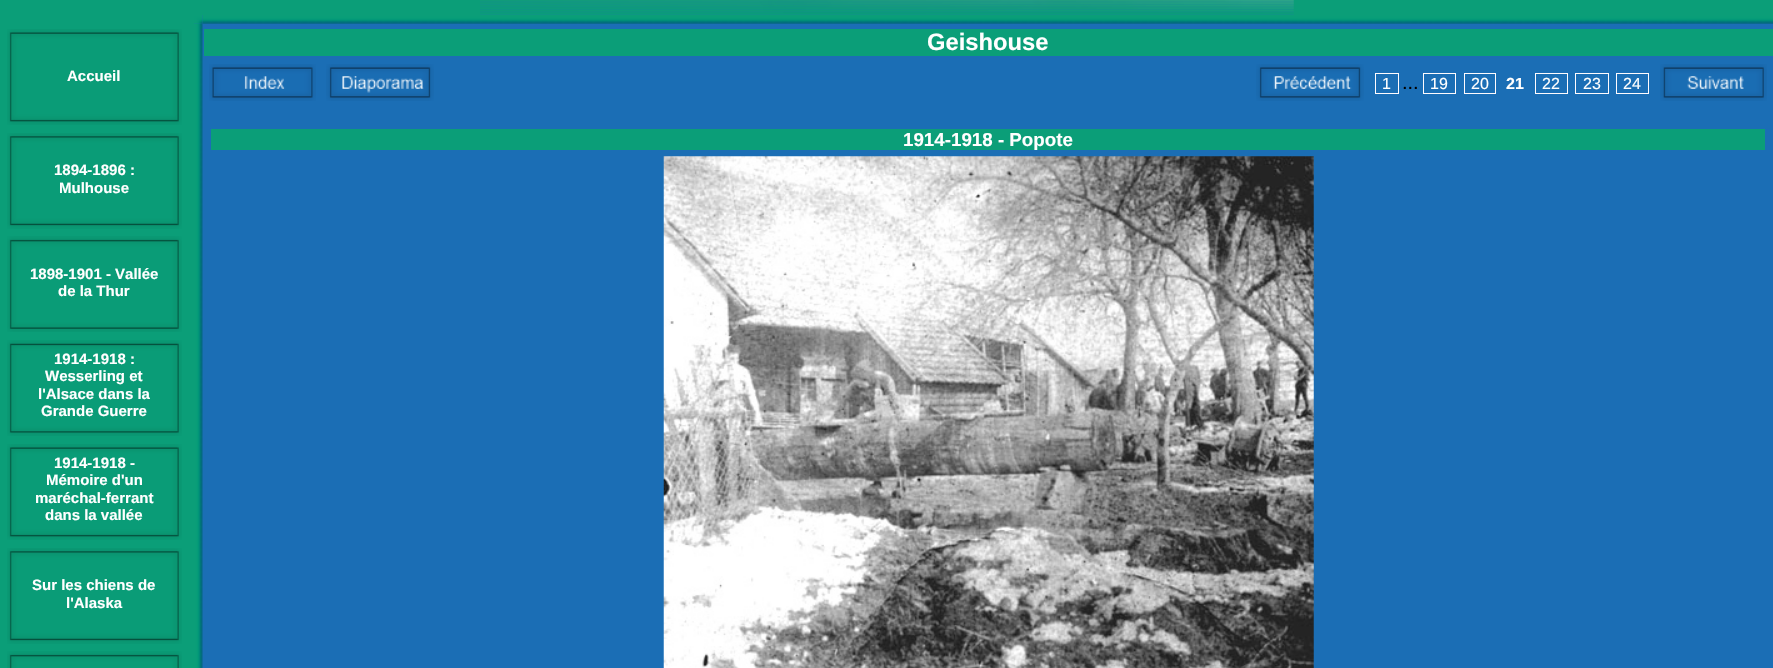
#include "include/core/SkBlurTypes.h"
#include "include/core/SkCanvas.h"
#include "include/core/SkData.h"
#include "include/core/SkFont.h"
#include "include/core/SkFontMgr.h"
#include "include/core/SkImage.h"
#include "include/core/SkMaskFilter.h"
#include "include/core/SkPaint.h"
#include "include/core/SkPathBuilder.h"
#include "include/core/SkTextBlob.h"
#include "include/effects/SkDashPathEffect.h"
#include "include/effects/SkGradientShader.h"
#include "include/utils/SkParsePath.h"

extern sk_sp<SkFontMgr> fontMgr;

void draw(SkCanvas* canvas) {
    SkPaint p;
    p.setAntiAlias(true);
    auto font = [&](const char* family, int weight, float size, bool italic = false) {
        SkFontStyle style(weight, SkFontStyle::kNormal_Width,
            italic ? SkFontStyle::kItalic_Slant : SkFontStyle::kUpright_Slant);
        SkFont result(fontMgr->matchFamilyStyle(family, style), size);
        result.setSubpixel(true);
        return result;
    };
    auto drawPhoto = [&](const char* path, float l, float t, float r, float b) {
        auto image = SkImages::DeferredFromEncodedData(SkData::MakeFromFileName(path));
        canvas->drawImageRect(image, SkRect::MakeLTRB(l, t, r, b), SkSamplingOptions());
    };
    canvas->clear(0xFF1B6EB5);
    p.setColor(0xFF0B9E78);
    canvas->drawRect(SkRect::MakeLTRB(0, 0, 1773, 15), p);
    drawPhoto("media/1.png", 480, 0, 1294, 15);
    canvas->drawRect(SkRect::MakeLTRB(0, 15, 194, 668), p);
    drawPhoto("media/3.png", 202, 15, 1773, 24);
    drawPhoto("media/9.png", 194, 23, 203, 668);
    drawPhoto("media/2.png", 194, 15, 203, 24);
    drawPhoto("media/4.png", 7, 29, 182, 125);
    auto font1 = font("Liberation Sans", 700, 15);
    p.setColor(0xFFFFFFFF);
    canvas->drawString("Accueil", 67, 81, font1, p);
    drawPhoto("media/5.png", 7, 133, 182, 229);
    canvas->drawString("1894-1896 :", 54, 175, font1, p);
    canvas->drawString("Mulhouse", 59, 193, font1, p);
    drawPhoto("media/6.png", 7, 236, 182, 332);
    canvas->drawString("1898-1901 - Vallée", 30, 279, font1, p);
    canvas->drawString("de la Thur", 58, 296, font1, p);
    drawPhoto("media/7.png", 7, 340, 182, 436);
    {
        const struct { const char* s; float x, y; } items[] = {
            {"1914-1918 :", 54, 364},
            {"Wesserling et", 45, 381},
            {"l'Alsace dans la", 38, 399},
            {"Grande Guerre", 41, 416},
        };
        for (auto [s, x, y] : items) {
            canvas->drawString(s, x, y, font1, p);
        }
    }
    drawPhoto("media/4.png", 7, 444, 182, 540);
    {
        const struct { const char* s; float x, y; } items[] = {
            {"1914-1918 -", 54, 468},
            {"Mémoire d'un", 46, 485},
            {"maréchal-ferrant", 35, 503},
            {"dans la vallée", 45, 520},
        };
        for (auto [s, x, y] : items) {
            canvas->drawString(s, x, y, font1, p);
        }
    }
    drawPhoto("media/5.png", 7, 548, 182, 644);
    canvas->drawString("Sur les chiens de", 32, 590, font1, p);
    canvas->drawString("l'Alaska", 66, 608, font1, p);
    drawPhoto("media/8.png", 7, 651, 182, 668);
    p.setColor(0xFF0B9E78);
    canvas->drawRect(SkRect::MakeLTRB(204, 29, 1773, 56), p);
    auto font2 = font("Liberation Sans", 700, 23.75f);
    p.setColor(0xFFFFFFFF);
    canvas->drawString("Geishouse", 927, 50, font2, p);
    drawPhoto("media/10.png", 209, 64, 316, 101);
    drawPhoto("media/11.png", 326, 64, 434, 101);
    drawPhoto("media/12.png", 1256, 64, 1364, 101);
    p.setStyle(SkPaint::kStroke_Style);
    p.setStrokeWidth(1);
    p.setColor(0xFFFFFBFE);
    canvas->drawRect(SkRect::MakeLTRB(1375.5f, 73.5f, 1398.5f, 93.5f), p);
    auto font3 = font("Liberation Sans", 400, 16);
    p.setStyle(SkPaint::kFill_Style);
    p.setColor(0xFFFFFFFF);
    canvas->drawString("1", 1382, 89, font3, p);
    auto font4 = font("Liberation Sans", 400, 20);
    p.setColor(0xFF000000);
    canvas->drawString("...", 1402, 89, font4, p);
    p.setStyle(SkPaint::kStroke_Style);
    p.setColor(0xFFFFFBFE);
    canvas->drawRect(SkRect::MakeLTRB(1423.5f, 73.5f, 1455.5f, 93.5f), p);
    p.setStyle(SkPaint::kFill_Style);
    p.setColor(0xFFFFFFFF);
    canvas->drawString("19", 1430, 89, font3, p);
    p.setStyle(SkPaint::kStroke_Style);
    p.setColor(0xFFFFFBFE);
    canvas->drawRect(SkRect::MakeLTRB(1464.5f, 73.5f, 1495.5f, 93.5f), p);
    p.setStyle(SkPaint::kFill_Style);
    p.setColor(0xFFFFFFFF);
    canvas->drawString("20", 1471, 89, font3, p);
    auto font5 = font("Liberation Sans", 700, 16);
    canvas->drawString("21", 1506, 89, font5, p);
    p.setStyle(SkPaint::kStroke_Style);
    p.setColor(0xFFFFFBFE);
    canvas->drawRect(SkRect::MakeLTRB(1535.5f, 73.5f, 1567.5f, 93.5f), p);
    p.setStyle(SkPaint::kFill_Style);
    p.setColor(0xFFFFFFFF);
    canvas->drawString("22", 1542, 89, font3, p);
    p.setStyle(SkPaint::kStroke_Style);
    p.setColor(0xFFFFFBFE);
    canvas->drawRect(SkRect::MakeLTRB(1575.5f, 73.5f, 1608.5f, 93.5f), p);
    p.setStyle(SkPaint::kFill_Style);
    p.setColor(0xFFFFFFFF);
    canvas->drawString("23", 1583, 89, font3, p);
    p.setStyle(SkPaint::kStroke_Style);
    p.setColor(0xFFFFFBFE);
    canvas->drawRect(SkRect::MakeLTRB(1616.5f, 73.5f, 1648.5f, 93.5f), p);
    p.setStyle(SkPaint::kFill_Style);
    p.setColor(0xFFFFFFFF);
    canvas->drawString("24", 1623, 89, font3, p);
    drawPhoto("media/13.png", 1660, 64, 1767, 101);
    p.setColor(0xFF0B9E78);
    canvas->drawRect(SkRect::MakeLTRB(211, 129, 1765, 150), p);
    auto font6 = font("Liberation Sans", 700, 18.75f);
    p.setColor(0xFFFFFFFF);
    canvas->drawString("1914-1918 - Popote", 903, 146, font6, p);
    drawPhoto("media/14.png", 663, 156, 1314, 668);
}
